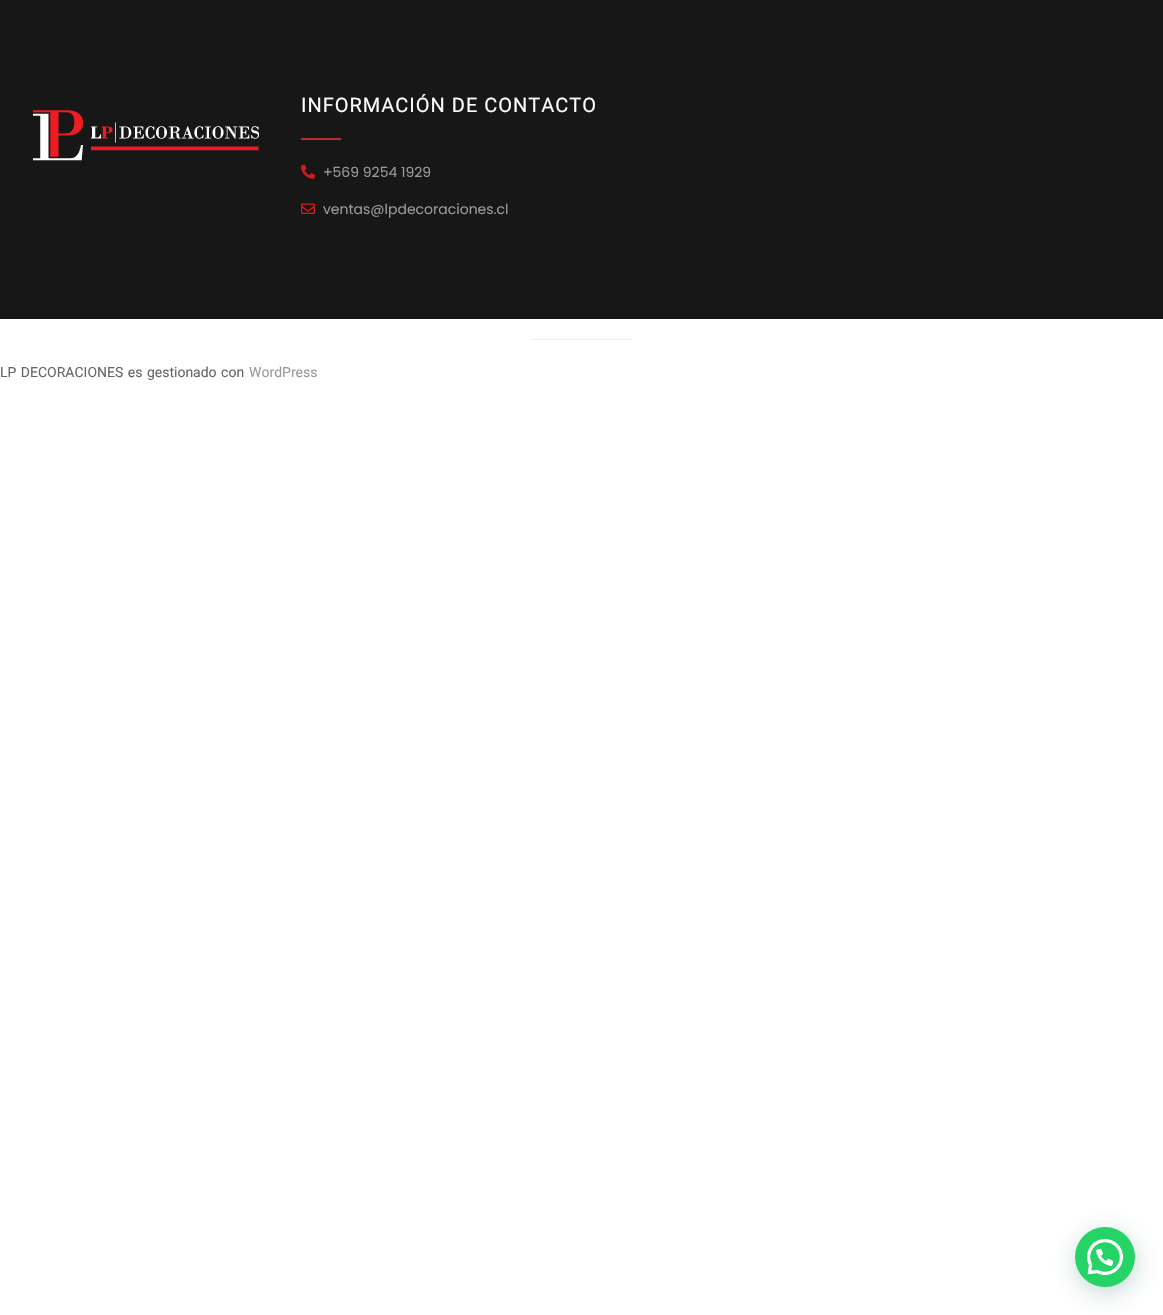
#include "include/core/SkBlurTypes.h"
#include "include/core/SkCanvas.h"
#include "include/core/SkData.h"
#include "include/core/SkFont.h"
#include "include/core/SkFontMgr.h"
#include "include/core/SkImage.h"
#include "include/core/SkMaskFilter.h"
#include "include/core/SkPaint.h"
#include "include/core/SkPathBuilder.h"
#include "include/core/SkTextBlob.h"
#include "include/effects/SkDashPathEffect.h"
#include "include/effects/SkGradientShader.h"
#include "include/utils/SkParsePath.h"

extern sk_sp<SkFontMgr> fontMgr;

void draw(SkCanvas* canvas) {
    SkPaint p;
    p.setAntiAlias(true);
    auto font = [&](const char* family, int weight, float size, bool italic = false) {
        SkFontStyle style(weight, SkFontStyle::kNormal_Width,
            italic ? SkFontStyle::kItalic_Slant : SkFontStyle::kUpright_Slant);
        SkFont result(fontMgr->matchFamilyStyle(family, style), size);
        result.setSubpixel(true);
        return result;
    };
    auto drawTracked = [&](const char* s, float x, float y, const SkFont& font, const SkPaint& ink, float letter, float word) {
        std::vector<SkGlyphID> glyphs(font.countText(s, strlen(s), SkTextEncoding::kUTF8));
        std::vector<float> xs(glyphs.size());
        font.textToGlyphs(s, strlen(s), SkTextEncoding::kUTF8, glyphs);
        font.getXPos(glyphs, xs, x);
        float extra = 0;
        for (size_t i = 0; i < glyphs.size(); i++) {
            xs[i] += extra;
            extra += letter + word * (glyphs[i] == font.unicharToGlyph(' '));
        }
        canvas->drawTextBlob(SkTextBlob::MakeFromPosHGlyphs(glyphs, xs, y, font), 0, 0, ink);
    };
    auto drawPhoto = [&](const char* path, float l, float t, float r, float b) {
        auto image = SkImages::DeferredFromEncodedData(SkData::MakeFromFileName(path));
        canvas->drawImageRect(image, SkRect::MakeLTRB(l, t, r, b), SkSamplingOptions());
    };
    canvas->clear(0xFFFFFFFF);
    p.setColor(0xFF171717);
    canvas->drawRect(SkRect::MakeLTRB(0, 0, 1163, 319), p);
    drawPhoto("media/1.png", 33, 110, 259, 161);
    auto font1 = font("Roboto", 400, 20);
    p.setColor(0xFFFFFFFF);
    drawTracked("INFORMACIÓN DE CONTACTO", 301, 112, font1, p, 1, 0);
    p.setColor(0xFFB52D2D);
    canvas->drawRect(SkRect::MakeLTRB(301, 138, 341, 140), p);
    drawPhoto("media/2.png", 301, 164, 315, 179);
    auto font2 = font("Poppins", 400, 14);
    p.setColor(0xFF999999);
    canvas->drawString("+569 9254 1929", 323, 177, font2, p);
    drawPhoto("media/3.png", 301, 203, 315, 214);
    canvas->drawString("ventas@lpdecoraciones.cl", 323, 214, font2, p);
    p.setColor(0xFFEEEEEE);
    canvas->drawRect(SkRect::MakeLTRB(532, 339, 632, 340), p);
    auto font3 = font("Roboto", 400, 14);
    p.setColor(0xFF666666);
    drawTracked("LP DECORACIONES es gestionado con", 0, 377, font3, p, 0, 1);
    p.setColor(0xFF999999);
    canvas->drawString("WordPress", 249, 377, font3, p);
    p.setColor(0x3D075E54);
    p.setMaskFilter(SkMaskFilter::MakeBlur(kNormal_SkBlurStyle, 12));
    canvas->drawRoundRect(SkRect::MakeLTRB(1076, 1233, 1136, 1293), 30, 30, p);
    p.setMaskFilter(nullptr);
    p.setColor(0xFF25D366);
    canvas->drawCircle(1105, 1257, 30, p);
    drawPhoto("media/4.png", 1087, 1239, 1123, 1275);
}
